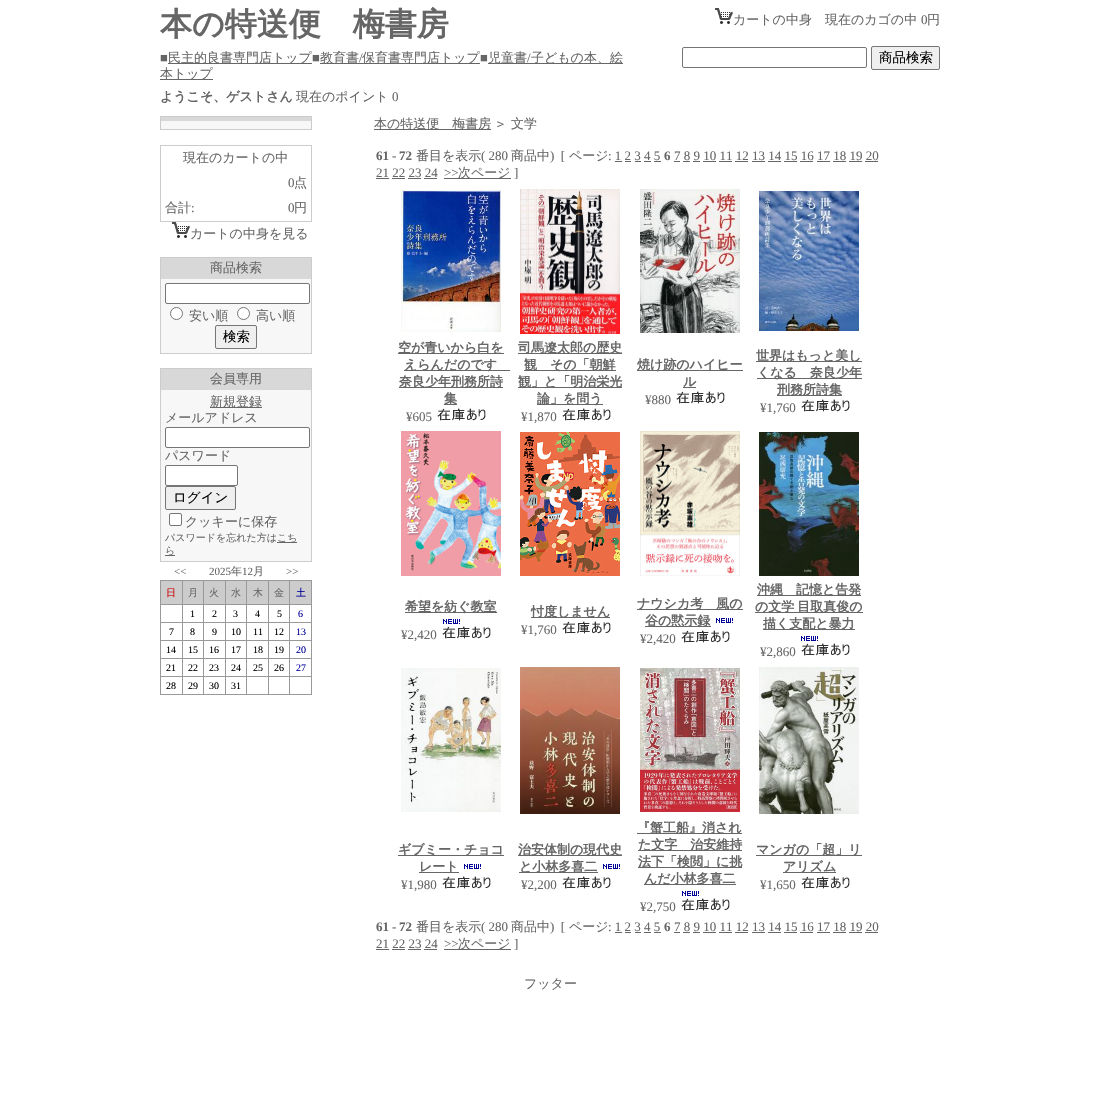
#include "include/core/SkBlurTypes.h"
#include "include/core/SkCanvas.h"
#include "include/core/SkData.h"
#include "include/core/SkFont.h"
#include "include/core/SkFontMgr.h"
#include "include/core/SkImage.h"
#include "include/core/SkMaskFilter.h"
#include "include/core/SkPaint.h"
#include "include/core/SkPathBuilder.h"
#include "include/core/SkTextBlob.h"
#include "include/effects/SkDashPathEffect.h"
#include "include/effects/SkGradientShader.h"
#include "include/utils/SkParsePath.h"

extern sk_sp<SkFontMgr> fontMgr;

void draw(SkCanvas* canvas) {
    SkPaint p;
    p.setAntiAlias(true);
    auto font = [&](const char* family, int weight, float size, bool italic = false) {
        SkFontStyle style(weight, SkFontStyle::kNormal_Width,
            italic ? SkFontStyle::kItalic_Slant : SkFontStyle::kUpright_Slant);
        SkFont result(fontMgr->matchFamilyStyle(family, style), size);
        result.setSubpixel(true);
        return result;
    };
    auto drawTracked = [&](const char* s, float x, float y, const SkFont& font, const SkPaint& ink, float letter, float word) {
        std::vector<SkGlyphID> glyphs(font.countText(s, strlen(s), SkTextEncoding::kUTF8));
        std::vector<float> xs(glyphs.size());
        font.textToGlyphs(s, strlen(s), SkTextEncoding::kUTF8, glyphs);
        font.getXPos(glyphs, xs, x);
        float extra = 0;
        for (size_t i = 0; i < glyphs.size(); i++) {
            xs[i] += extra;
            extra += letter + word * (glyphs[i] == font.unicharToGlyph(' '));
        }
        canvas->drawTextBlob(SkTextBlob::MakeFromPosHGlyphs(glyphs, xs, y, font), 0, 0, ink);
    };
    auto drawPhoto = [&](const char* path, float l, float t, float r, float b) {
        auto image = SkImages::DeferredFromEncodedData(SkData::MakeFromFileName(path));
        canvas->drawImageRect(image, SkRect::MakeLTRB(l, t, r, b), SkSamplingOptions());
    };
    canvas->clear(0xFFFFFFFF);
    auto font1 = font("WenQuanYi Zen Hei", 700, 32);
    p.setColor(0xFF666666);
    canvas->drawString("本の特送便　梅書房", 160, 35, font1, p);
    drawPhoto("media/1.png", 715, 8, 733, 24);
    auto font2 = font("WenQuanYi Zen Hei", 500, 13);
    canvas->drawString("カートの中身　現在のカゴの中", 733, 24, font2, p);
    auto font3 = font("Liberation Serif", 400, 13);
    canvas->drawString("0", 921, 24, font3, p);
    canvas->drawString("円", 927, 24, font2, p);
    canvas->drawString("■", 160, 62, font3, p);
    canvas->drawRect(SkRect::MakeLTRB(168, 63, 312, 64), p);
    canvas->drawString("民主的良書専門店トップ", 168, 62, font2, p);
    canvas->drawString("■", 312, 62, font3, p);
    canvas->drawRect(SkRect::MakeLTRB(320, 63, 480, 64), p);
    canvas->drawString("教育書", 320, 62, font2, p);
    canvas->drawString("/", 359, 62, font3, p);
    canvas->drawString("保育書専門店トップ", 362, 62, font2, p);
    canvas->drawString("■", 480, 62, font3, p);
    canvas->drawRect(SkRect::MakeLTRB(488, 63, 623, 64), p);
    canvas->drawString("児童書", 488, 62, font2, p);
    canvas->drawString("/", 527, 62, font3, p);
    canvas->drawString("子どもの本、絵", 531, 62, font2, p);
    canvas->drawRect(SkRect::MakeLTRB(160, 79, 213, 80), p);
    canvas->drawString("本トップ", 160, 78, font2, p);
    p.setStyle(SkPaint::kStroke_Style);
    p.setStrokeWidth(1);
    p.setColor(0xFF767676);
    canvas->drawRoundRect(SkRect::MakeLTRB(682.5f, 47.5f, 866.5f, 67.5f), 1.5f, 1.5f, p);
    p.setStyle(SkPaint::kFill_Style);
    p.setColor(0xFFEFEFEF);
    canvas->drawRoundRect(SkRect::MakeLTRB(871.5f, 46.5f, 939.5f, 69.5f), 1.5f, 1.5f, p);
    p.setStyle(SkPaint::kStroke_Style);
    p.setColor(0xFF767676);
    canvas->drawRoundRect(SkRect::MakeLTRB(871.5f, 46.5f, 939.5f, 69.5f), 1.5f, 1.5f, p);
    auto font4 = font("WenQuanYi Zen Hei", 500, 13.5f);
    p.setStyle(SkPaint::kFill_Style);
    p.setColor(0xFF000000);
    canvas->drawString("商品検索", 879, 62, font4, p);
    auto font5 = font("WenQuanYi Zen Hei", 700, 13);
    p.setColor(0xFF666666);
    canvas->drawString("ようこそ、ゲストさん", 160, 101, font5, p);
    canvas->drawString("現在のポイント", 296, 101, font2, p);
    canvas->drawString("0", 392, 101, font3, p);
    p.setStyle(SkPaint::kStroke_Style);
    p.setColor(0xFFCCCCCC);
    canvas->drawRect(SkRect::MakeLTRB(160.5f, 116.5f, 311.5f, 129.5f), p);
    p.setStyle(SkPaint::kFill_Style);
    p.setColor(0xFFD8D8D8);
    canvas->drawRect(SkRect::MakeLTRB(161, 117, 311, 121), p);
    p.setColor(0xFFF7F7F7);
    canvas->drawRect(SkRect::MakeLTRB(161, 121, 311, 129), p);
    p.setStyle(SkPaint::kStroke_Style);
    p.setColor(0xFFCCCCCC);
    canvas->drawRect(SkRect::MakeLTRB(160.5f, 145.5f, 311.5f, 221.5f), p);
    p.setStyle(SkPaint::kFill_Style);
    p.setColor(0xFF666666);
    canvas->drawString("現在のカートの中", 183, 162, font2, p);
    canvas->drawString("0", 288, 187, font3, p);
    canvas->drawString("点", 294, 187, font2, p);
    canvas->drawString("合計", 165, 212, font2, p);
    canvas->drawString(":", 191, 212, font3, p);
    canvas->drawString("0", 288, 212, font3, p);
    canvas->drawString("円", 294, 212, font2, p);
    drawPhoto("media/1.png", 172, 222, 190, 238);
    canvas->drawString("カートの中身を見る", 190, 238, font2, p);
    p.setStyle(SkPaint::kStroke_Style);
    p.setColor(0xFFCCCCCC);
    canvas->drawRect(SkRect::MakeLTRB(160.5f, 257.5f, 311.5f, 353.5f), p);
    p.setStyle(SkPaint::kFill_Style);
    p.setColor(0xFFD8D8D8);
    canvas->drawRect(SkRect::MakeLTRB(161, 258, 311, 279), p);
    p.setColor(0xFF666666);
    canvas->drawString("商品検索", 210, 272, font2, p);
    p.setColor(0xFFF7F7F7);
    canvas->drawRect(SkRect::MakeLTRB(161, 279, 311, 353), p);
    p.setColor(0xFFFFFFFF);
    canvas->drawRoundRect(SkRect::MakeLTRB(165.5f, 283.5f, 309.5f, 303.5f), 1.5f, 1.5f, p);
    p.setStyle(SkPaint::kStroke_Style);
    p.setColor(0xFF767676);
    canvas->drawRoundRect(SkRect::MakeLTRB(165.5f, 283.5f, 309.5f, 303.5f), 1.5f, 1.5f, p);
    p.setStyle(SkPaint::kFill_Style);
    p.setColor(0xFFFFFFFF);
    canvas->drawCircle(176.5f, 313.5f, 6, p);
    p.setStyle(SkPaint::kStroke_Style);
    p.setColor(0xFF767676);
    canvas->drawCircle(176.5f, 313.5f, 6, p);
    p.setStyle(SkPaint::kFill_Style);
    p.setColor(0xFF666666);
    canvas->drawString("安い順", 189, 320, font2, p);
    p.setColor(0xFFFFFFFF);
    canvas->drawCircle(243.5f, 313.5f, 6, p);
    p.setStyle(SkPaint::kStroke_Style);
    p.setColor(0xFF767676);
    canvas->drawCircle(243.5f, 313.5f, 6, p);
    p.setStyle(SkPaint::kFill_Style);
    p.setColor(0xFF666666);
    canvas->drawString("高い順", 256, 320, font2, p);
    p.setColor(0xFFEFEFEF);
    canvas->drawRoundRect(SkRect::MakeLTRB(215.5f, 325.5f, 256.5f, 348.5f), 1.5f, 1.5f, p);
    p.setStyle(SkPaint::kStroke_Style);
    p.setColor(0xFF767676);
    canvas->drawRoundRect(SkRect::MakeLTRB(215.5f, 325.5f, 256.5f, 348.5f), 1.5f, 1.5f, p);
    p.setStyle(SkPaint::kFill_Style);
    p.setColor(0xFF000000);
    canvas->drawString("検索", 223, 341, font4, p);
    p.setStyle(SkPaint::kStroke_Style);
    p.setColor(0xFFCCCCCC);
    canvas->drawRect(SkRect::MakeLTRB(160.5f, 368.5f, 311.5f, 561.5f), p);
    p.setStyle(SkPaint::kFill_Style);
    p.setColor(0xFFD8D8D8);
    canvas->drawRect(SkRect::MakeLTRB(161, 369, 311, 390), p);
    p.setColor(0xFF666666);
    canvas->drawString("会員専用", 210, 383, font2, p);
    p.setColor(0xFFF7F7F7);
    canvas->drawRect(SkRect::MakeLTRB(161, 390, 311, 561), p);
    p.setColor(0xFF666666);
    canvas->drawRect(SkRect::MakeLTRB(210, 407, 262, 408), p);
    canvas->drawString("新規登録", 210, 406, font2, p);
    canvas->drawString("メールアドレス", 165, 422, font2, p);
    p.setColor(0xFFFFFFFF);
    canvas->drawRoundRect(SkRect::MakeLTRB(165.5f, 427.5f, 309.5f, 447.5f), 1.5f, 1.5f, p);
    p.setStyle(SkPaint::kStroke_Style);
    p.setColor(0xFF767676);
    canvas->drawRoundRect(SkRect::MakeLTRB(165.5f, 427.5f, 309.5f, 447.5f), 1.5f, 1.5f, p);
    p.setStyle(SkPaint::kFill_Style);
    p.setColor(0xFF666666);
    canvas->drawString("パスワード", 165, 460, font2, p);
    p.setColor(0xFFFFFFFF);
    canvas->drawRoundRect(SkRect::MakeLTRB(165.5f, 465.5f, 237.5f, 485.5f), 1.5f, 1.5f, p);
    p.setStyle(SkPaint::kStroke_Style);
    p.setColor(0xFF767676);
    canvas->drawRoundRect(SkRect::MakeLTRB(165.5f, 465.5f, 237.5f, 485.5f), 1.5f, 1.5f, p);
    p.setStyle(SkPaint::kFill_Style);
    p.setColor(0xFFEFEFEF);
    canvas->drawRoundRect(SkRect::MakeLTRB(165.5f, 486.5f, 235.5f, 509.5f), 1.5f, 1.5f, p);
    p.setStyle(SkPaint::kStroke_Style);
    p.setColor(0xFF767676);
    canvas->drawRoundRect(SkRect::MakeLTRB(165.5f, 486.5f, 235.5f, 509.5f), 1.5f, 1.5f, p);
    p.setStyle(SkPaint::kFill_Style);
    p.setColor(0xFF000000);
    canvas->drawString("ログイン", 173, 502, font4, p);
    p.setColor(0xFFFFFFFF);
    canvas->drawRoundRect(SkRect::MakeLTRB(169.5f, 513.5f, 181.5f, 525.5f), 1.5f, 1.5f, p);
    p.setStyle(SkPaint::kStroke_Style);
    p.setColor(0xFF767676);
    canvas->drawRoundRect(SkRect::MakeLTRB(169.5f, 513.5f, 181.5f, 525.5f), 1.5f, 1.5f, p);
    p.setStyle(SkPaint::kFill_Style);
    p.setColor(0xFF666666);
    canvas->drawString("クッキーに保存", 185, 526, font2, p);
    auto font6 = font("WenQuanYi Zen Hei", 500, 10);
    canvas->drawString("パスワードを忘れた方は", 165, 541, font6, p);
    canvas->drawRect(SkRect::MakeLTRB(277, 542, 297, 543), p);
    canvas->drawString("こち", 277, 541, font6, p);
    canvas->drawRect(SkRect::MakeLTRB(165, 555, 175, 556), p);
    canvas->drawString("ら", 165, 554, font6, p);
    auto font7 = font("Liberation Serif", 400, 11);
    canvas->drawString("<<", 174, 575, font7, p);
    canvas->drawString("2025", 209, 575, font7, p);
    auto font8 = font("WenQuanYi Zen Hei", 500, 11);
    canvas->drawString("年", 231, 575, font8, p);
    canvas->drawString("12", 242, 575, font7, p);
    canvas->drawString("月", 253, 575, font8, p);
    canvas->drawString(">>", 286, 575, font7, p);
    {
        const struct { float l, t, r, b; SkColor color; } items[] = {
            {160, 580, 312, 581, 0xFF999999},
            {311, 580, 312, 695, 0xFF999999},
            {160, 694, 312, 695, 0xFF999999},
            {160, 580, 161, 695, 0xFF999999},
            {161, 581, 182, 604, 0xFFCCCCCC},
        };
        for (auto [l, t, r, b, color] : items) {
            p.setColor(color);
            canvas->drawRect(SkRect::MakeLTRB(l, t, r, b), p);
        }
    }
    p.setColor(0xFFCC0000);
    canvas->drawString("日", 166, 596, font6, p);
    {
        const struct { float l, t, r, b; SkColor color; } items[] = {
            {183, 581, 203, 604, 0xFFCCCCCC},
            {289, 604, 312, 605, 0xFF999999},
            {289, 622, 312, 623, 0xFF999999},
            {289, 640, 312, 641, 0xFF999999},
            {289, 658, 312, 659, 0xFF999999},
            {289, 676, 312, 677, 0xFF999999},
            {289, 676, 290, 695, 0xFF999999},
            {268, 676, 290, 677, 0xFF999999},
            {289, 658, 290, 677, 0xFF999999},
            {268, 658, 290, 659, 0xFF999999},
            {289, 640, 290, 659, 0xFF999999},
            {268, 640, 290, 641, 0xFF999999},
            {289, 622, 290, 641, 0xFF999999},
            {268, 622, 290, 623, 0xFF999999},
            {289, 604, 290, 623, 0xFF999999},
            {268, 604, 290, 605, 0xFF999999},
            {268, 676, 269, 695, 0xFF999999},
            {246, 676, 269, 677, 0xFF999999},
            {268, 658, 269, 677, 0xFF999999},
            {246, 658, 269, 659, 0xFF999999},
            {268, 640, 269, 659, 0xFF999999},
            {246, 640, 269, 641, 0xFF999999},
            {268, 622, 269, 641, 0xFF999999},
            {246, 622, 269, 623, 0xFF999999},
            {268, 604, 269, 623, 0xFF999999},
            {246, 604, 269, 605, 0xFF999999},
            {246, 676, 247, 695, 0xFF999999},
            {225, 676, 247, 677, 0xFF999999},
            {246, 658, 247, 677, 0xFF999999},
            {225, 658, 247, 659, 0xFF999999},
            {246, 640, 247, 659, 0xFF999999},
            {225, 640, 247, 641, 0xFF999999},
            {246, 622, 247, 641, 0xFF999999},
            {225, 622, 247, 623, 0xFF999999},
            {246, 604, 247, 623, 0xFF999999},
            {225, 604, 247, 605, 0xFF999999},
            {225, 676, 226, 695, 0xFF999999},
            {203, 676, 226, 677, 0xFF999999},
            {225, 658, 226, 677, 0xFF999999},
            {203, 658, 226, 659, 0xFF999999},
            {225, 640, 226, 659, 0xFF999999},
            {203, 640, 226, 641, 0xFF999999},
            {225, 622, 226, 641, 0xFF999999},
            {203, 622, 226, 623, 0xFF999999},
            {225, 604, 226, 623, 0xFF999999},
            {203, 604, 226, 605, 0xFF999999},
            {203, 676, 204, 695, 0xFF999999},
            {182, 676, 204, 677, 0xFF999999},
            {203, 658, 204, 677, 0xFF999999},
            {182, 658, 204, 659, 0xFF999999},
            {203, 640, 204, 659, 0xFF999999},
            {182, 640, 204, 641, 0xFF999999},
            {203, 622, 204, 641, 0xFF999999},
            {182, 622, 204, 623, 0xFF999999},
            {203, 604, 204, 623, 0xFF999999},
            {182, 604, 204, 605, 0xFF999999},
            {182, 676, 183, 695, 0xFF999999},
            {160, 676, 183, 677, 0xFF999999},
            {182, 658, 183, 677, 0xFF999999},
            {160, 658, 183, 659, 0xFF999999},
            {182, 640, 183, 659, 0xFF999999},
            {160, 640, 183, 641, 0xFF999999},
            {182, 622, 183, 641, 0xFF999999},
            {160, 622, 183, 623, 0xFF999999},
            {182, 604, 183, 623, 0xFF999999},
            {160, 604, 183, 605, 0xFF999999},
            {182, 580, 183, 605, 0xFF999999},
        };
        for (auto [l, t, r, b, color] : items) {
            p.setColor(color);
            canvas->drawRect(SkRect::MakeLTRB(l, t, r, b), p);
        }
    }
    p.setColor(0xFF666666);
    canvas->drawString("月", 188, 596, font6, p);
    p.setColor(0xFFCCCCCC);
    canvas->drawRect(SkRect::MakeLTRB(204, 581, 225, 604), p);
    p.setColor(0xFF999999);
    canvas->drawRect(SkRect::MakeLTRB(203, 580, 204, 605), p);
    p.setColor(0xFF666666);
    canvas->drawString("火", 209, 596, font6, p);
    p.setColor(0xFFCCCCCC);
    canvas->drawRect(SkRect::MakeLTRB(226, 581, 246, 604), p);
    p.setColor(0xFF999999);
    canvas->drawRect(SkRect::MakeLTRB(225, 580, 226, 605), p);
    p.setColor(0xFF666666);
    canvas->drawString("水", 231, 596, font6, p);
    p.setColor(0xFFCCCCCC);
    canvas->drawRect(SkRect::MakeLTRB(247, 581, 268, 604), p);
    p.setColor(0xFF999999);
    canvas->drawRect(SkRect::MakeLTRB(246, 580, 247, 605), p);
    p.setColor(0xFF666666);
    canvas->drawString("木", 253, 596, font6, p);
    p.setColor(0xFFCCCCCC);
    canvas->drawRect(SkRect::MakeLTRB(269, 581, 289, 604), p);
    p.setColor(0xFF999999);
    canvas->drawRect(SkRect::MakeLTRB(268, 580, 269, 605), p);
    p.setColor(0xFF666666);
    canvas->drawString("金", 274, 596, font6, p);
    p.setColor(0xFFCCCCCC);
    canvas->drawRect(SkRect::MakeLTRB(290, 581, 311, 604), p);
    p.setColor(0xFF999999);
    canvas->drawRect(SkRect::MakeLTRB(289, 580, 290, 605), p);
    p.setColor(0xFF000099);
    canvas->drawString("土", 296, 596, font6, p);
    auto font9 = font("Liberation Serif", 400, 10);
    p.setColor(0xFF000000);
    {
        const struct { const char* s; float x, y; } items[] = {
            {"1", 190, 617},
            {"2", 212, 617},
            {"3", 233, 617},
            {"4", 255, 617},
            {"5", 277, 617},
        };
        for (auto [s, x, y] : items) {
            canvas->drawString(s, x, y, font9, p);
        }
    }
    p.setColor(0xFF000099);
    canvas->drawString("6", 298, 617, font9, p);
    p.setColor(0xFF000000);
    {
        const struct { const char* s; float x, y; } items[] = {
            {"7", 169, 635},
            {"8", 190, 635},
            {"9", 212, 635},
            {"10", 231, 635},
            {"11", 253, 635},
            {"12", 274, 635},
        };
        for (auto [s, x, y] : items) {
            canvas->drawString(s, x, y, font9, p);
        }
    }
    p.setColor(0xFF000099);
    canvas->drawString("13", 296, 635, font9, p);
    p.setColor(0xFF000000);
    {
        const struct { const char* s; float x, y; } items[] = {
            {"14", 166, 653},
            {"15", 188, 653},
            {"16", 209, 653},
            {"17", 231, 653},
            {"18", 253, 653},
            {"19", 274, 653},
        };
        for (auto [s, x, y] : items) {
            canvas->drawString(s, x, y, font9, p);
        }
    }
    p.setColor(0xFF000099);
    canvas->drawString("20", 296, 653, font9, p);
    p.setColor(0xFF000000);
    {
        const struct { const char* s; float x, y; } items[] = {
            {"21", 166, 671},
            {"22", 188, 671},
            {"23", 209, 671},
            {"24", 231, 671},
            {"25", 253, 671},
            {"26", 274, 671},
        };
        for (auto [s, x, y] : items) {
            canvas->drawString(s, x, y, font9, p);
        }
    }
    p.setColor(0xFF000099);
    canvas->drawString("27", 296, 671, font9, p);
    p.setColor(0xFF000000);
    {
        const struct { const char* s; float x, y; } items[] = {
            {"28", 166, 689},
            {"29", 188, 689},
            {"30", 209, 689},
            {"31", 231, 689},
        };
        for (auto [s, x, y] : items) {
            canvas->drawString(s, x, y, font9, p);
        }
    }
    p.setColor(0xFF666666);
    canvas->drawRect(SkRect::MakeLTRB(374, 129, 491, 130), p);
    canvas->drawString("本の特送便　梅書房", 374, 128, font2, p);
    canvas->drawString("＞ 文学", 494, 128, font2, p);
    auto font10 = font("Liberation Serif", 700, 13);
    canvas->drawString("61", 376, 160, font10, p);
    canvas->drawString("-", 392, 160, font3, p);
    canvas->drawString("72", 399, 160, font10, p);
    canvas->drawString("番目を表示", 416, 160, font2, p);
    canvas->drawString("( 280", 481, 160, font3, p);
    canvas->drawString("商品中", 511, 160, font2, p);
    canvas->drawString(")  [", 550, 160, font3, p);
    canvas->drawString("ページ", 569, 160, font2, p);
    canvas->drawString(": 1 2 3 4 5", 608, 160, font3, p);
    canvas->drawString("6", 664, 160, font10, p);
    canvas->drawString("7 8 9 10 11 12 13 14 15 16 17 18 19 20", 674, 160, font3, p);
    {
        const struct { float l, t, r, b; SkColor color; } items[] = {
            {674, 161, 680, 162, 0xFF666666},
            {615, 161, 622, 162, 0xFF666666},
            {625, 161, 631, 162, 0xFF666666},
            {635, 161, 641, 162, 0xFF666666},
            {644, 161, 651, 162, 0xFF666666},
            {654, 161, 661, 162, 0xFF666666},
            {683, 161, 690, 162, 0xFF666666},
            {693, 161, 700, 162, 0xFF666666},
            {703, 161, 716, 162, 0xFF666666},
            {719, 161, 732, 162, 0xFF666666},
            {735, 161, 748, 162, 0xFF666666},
            {752, 161, 765, 162, 0xFF666666},
            {768, 161, 781, 162, 0xFF666666},
            {784, 161, 797, 162, 0xFF666666},
            {800, 161, 813, 162, 0xFF666666},
            {817, 161, 830, 162, 0xFF666666},
            {833, 161, 846, 162, 0xFF666666},
            {849, 161, 862, 162, 0xFF666666},
            {865, 161, 878, 162, 0xFF666666},
        };
        for (auto [l, t, r, b, color] : items) {
            p.setColor(color);
            canvas->drawRect(SkRect::MakeLTRB(l, t, r, b), p);
        }
    }
    canvas->drawString("21 22 23 24", 376, 177, font3, p);
    canvas->drawRect(SkRect::MakeLTRB(376, 178, 389, 179), p);
    canvas->drawString(">>", 444, 177, font3, p);
    canvas->drawRect(SkRect::MakeLTRB(444, 178, 511, 179), p);
    canvas->drawString("次ページ", 458, 177, font2, p);
    canvas->drawString("]", 514, 177, font3, p);
    {
        const struct { float l, t, r, b; SkColor color; } items[] = {
            {392, 178, 405, 179, 0xFF666666},
            {408, 178, 421, 179, 0xFF666666},
            {424, 178, 437, 179, 0xFF666666},
        };
        for (auto [l, t, r, b, color] : items) {
            p.setColor(color);
            canvas->drawRect(SkRect::MakeLTRB(l, t, r, b), p);
        }
    }
    drawPhoto("media/2.png", 401, 190, 501, 332);
    drawPhoto("media/3.png", 520, 189, 620, 334);
    drawPhoto("media/4.png", 640, 189, 740, 333);
    drawPhoto("media/5.png", 759, 191, 859, 331);
    canvas->drawRect(SkRect::MakeLTRB(398, 353, 504, 354), p);
    canvas->drawString("空が青いから白を", 398, 352, font5, p);
    canvas->drawRect(SkRect::MakeLTRB(404, 370, 510, 371), p);
    canvas->drawString("えらんだのです", 404, 369, font5, p);
    canvas->drawRect(SkRect::MakeLTRB(399, 387, 503, 388), p);
    canvas->drawString("奈良少年刑務所詩", 399, 386, font5, p);
    canvas->drawRect(SkRect::MakeLTRB(444, 404, 457, 405), p);
    canvas->drawString("集", 444, 403, font5, p);
    canvas->drawString("¥605", 406, 421, font3, p);
    drawPhoto("media/6.png", 437, 408, 486, 421);
    canvas->drawRect(SkRect::MakeLTRB(518, 353, 622, 354), p);
    canvas->drawString("司馬遼太郎の歴史", 518, 352, font5, p);
    canvas->drawRect(SkRect::MakeLTRB(524, 370, 616, 371), p);
    canvas->drawString("観　その「朝鮮", 524, 369, font5, p);
    canvas->drawRect(SkRect::MakeLTRB(518, 387, 622, 388), p);
    canvas->drawString("観」と「明治栄光", 518, 386, font5, p);
    canvas->drawRect(SkRect::MakeLTRB(537, 404, 603, 405), p);
    canvas->drawString("論」を問う", 537, 403, font5, p);
    canvas->drawString("¥1,870", 521, 421, font3, p);
    drawPhoto("media/6.png", 562, 408, 611, 421);
    canvas->drawRect(SkRect::MakeLTRB(637, 370, 743, 371), p);
    canvas->drawString("焼け跡のハイヒー", 637, 369, font5, p);
    canvas->drawString("ル", 683, 386, font5, p);
    canvas->drawRect(SkRect::MakeLTRB(683, 387, 696, 388), p);
    canvas->drawString("¥880", 645, 404, font3, p);
    drawPhoto("media/6.png", 676, 391, 725, 404);
    canvas->drawRect(SkRect::MakeLTRB(756, 361, 862, 362), p);
    canvas->drawString("世界はもっと美し", 756, 360, font5, p);
    canvas->drawRect(SkRect::MakeLTRB(757, 378, 862, 379), p);
    canvas->drawString("くなる　奈良少年", 757, 377, font5, p);
    canvas->drawRect(SkRect::MakeLTRB(777, 395, 842, 396), p);
    canvas->drawString("刑務所詩集", 777, 394, font5, p);
    canvas->drawString("¥1,760", 760, 412, font3, p);
    drawPhoto("media/6.png", 801, 399, 850, 412);
    drawPhoto("media/7.png", 401, 431, 501, 576);
    drawPhoto("media/8.png", 520, 432, 620, 576);
    drawPhoto("media/9.png", 640, 431, 740, 576);
    drawPhoto("media/10.png", 759, 432, 859, 576);
    canvas->drawRect(SkRect::MakeLTRB(405, 612, 497, 613), p);
    canvas->drawString("希望を紡ぐ教室", 405, 611, font5, p);
    drawPhoto("media/11.png", 443, 619, 460, 624);
    canvas->drawString("¥2,420", 401, 639, font3, p);
    drawPhoto("media/6.png", 442, 626, 491, 639);
    canvas->drawRect(SkRect::MakeLTRB(531, 617, 610, 618), p);
    canvas->drawString("忖度しません", 531, 616, font5, p);
    canvas->drawString("¥1,760", 521, 634, font3, p);
    drawPhoto("media/6.png", 562, 621, 611, 634);
    canvas->drawRect(SkRect::MakeLTRB(637, 609, 743, 610), p);
    canvas->drawString("ナウシカ考　風の", 637, 608, font5, p);
    canvas->drawRect(SkRect::MakeLTRB(645, 626, 711, 627), p);
    canvas->drawString("谷の黙示録", 645, 625, font5, p);
    drawPhoto("media/11.png", 716, 618, 733, 623);
    canvas->drawString("¥2,420", 640, 643, font3, p);
    drawPhoto("media/6.png", 681, 630, 730, 643);
    canvas->drawRect(SkRect::MakeLTRB(757, 595, 861, 596), p);
    canvas->drawString("沖縄　記憶と告発", 757, 594, font5, p);
    canvas->drawRect(SkRect::MakeLTRB(755, 612, 863, 613), p);
    drawTracked("の文学 目取真俊の", 755, 611, font5, p, 0, -1);
    canvas->drawRect(SkRect::MakeLTRB(763, 629, 855, 630), p);
    canvas->drawString("描く支配と暴力", 763, 628, font5, p);
    drawPhoto("media/11.png", 801, 636, 818, 641);
    canvas->drawString("¥2,860", 760, 656, font3, p);
    drawPhoto("media/6.png", 801, 643, 850, 656);
    drawPhoto("media/12.png", 401, 668, 501, 812);
    drawPhoto("media/13.png", 520, 667, 620, 814);
    drawPhoto("media/14.png", 640, 668, 740, 812);
    drawPhoto("media/15.png", 759, 667, 859, 814);
    canvas->drawRect(SkRect::MakeLTRB(398, 855, 504, 856), p);
    canvas->drawString("ギブミー・チョコ", 398, 854, font5, p);
    canvas->drawRect(SkRect::MakeLTRB(419, 872, 459, 873), p);
    canvas->drawString("レート", 419, 871, font5, p);
    drawPhoto("media/11.png", 464, 864, 481, 869);
    canvas->drawString("¥1,980", 401, 889, font3, p);
    drawPhoto("media/6.png", 442, 876, 491, 889);
    canvas->drawRect(SkRect::MakeLTRB(518, 855, 622, 856), p);
    canvas->drawString("治安体制の現代史", 518, 854, font5, p);
    canvas->drawRect(SkRect::MakeLTRB(519, 872, 598, 873), p);
    canvas->drawString("と小林多喜二", 519, 871, font5, p);
    drawPhoto("media/11.png", 603, 864, 620, 869);
    canvas->drawString("¥2,200", 521, 889, font3, p);
    drawPhoto("media/6.png", 562, 876, 611, 889);
    canvas->drawRect(SkRect::MakeLTRB(637, 833, 742, 834), p);
    canvas->drawString("『蟹工船』消され", 637, 832, font5, p);
    canvas->drawRect(SkRect::MakeLTRB(638, 850, 742, 851), p);
    canvas->drawString("た文字　治安維持", 638, 849, font5, p);
    canvas->drawRect(SkRect::MakeLTRB(638, 867, 742, 868), p);
    canvas->drawString("法下「検閲」に挑", 638, 866, font5, p);
    canvas->drawRect(SkRect::MakeLTRB(644, 884, 736, 885), p);
    canvas->drawString("んだ小林多喜二", 644, 883, font5, p);
    drawPhoto("media/11.png", 682, 891, 699, 896);
    canvas->drawString("¥2,750", 640, 911, font3, p);
    drawPhoto("media/6.png", 681, 898, 730, 911);
    canvas->drawRect(SkRect::MakeLTRB(756, 855, 862, 856), p);
    canvas->drawString("マンガの「超」リ", 756, 854, font5, p);
    canvas->drawRect(SkRect::MakeLTRB(783, 872, 836, 873), p);
    canvas->drawString("アリズム", 783, 871, font5, p);
    canvas->drawString("¥1,650", 760, 889, font3, p);
    drawPhoto("media/6.png", 801, 876, 850, 889);
    canvas->drawString("61", 376, 931, font10, p);
    canvas->drawString("-", 392, 931, font3, p);
    canvas->drawString("72", 399, 931, font10, p);
    canvas->drawString("番目を表示", 416, 931, font2, p);
    canvas->drawString("( 280", 481, 931, font3, p);
    canvas->drawString("商品中", 511, 931, font2, p);
    canvas->drawString(")  [", 550, 931, font3, p);
    canvas->drawString("ページ", 569, 931, font2, p);
    canvas->drawString(": 1 2 3 4 5", 608, 931, font3, p);
    canvas->drawString("6", 664, 931, font10, p);
    canvas->drawString("7 8 9 10 11 12 13 14 15 16 17 18 19 20", 674, 931, font3, p);
    {
        const struct { float l, t, r, b; SkColor color; } items[] = {
            {674, 932, 680, 933, 0xFF666666},
            {615, 932, 622, 933, 0xFF666666},
            {625, 932, 631, 933, 0xFF666666},
            {635, 932, 641, 933, 0xFF666666},
            {644, 932, 651, 933, 0xFF666666},
            {654, 932, 661, 933, 0xFF666666},
            {683, 932, 690, 933, 0xFF666666},
            {693, 932, 700, 933, 0xFF666666},
            {703, 932, 716, 933, 0xFF666666},
            {719, 932, 732, 933, 0xFF666666},
            {735, 932, 748, 933, 0xFF666666},
            {752, 932, 765, 933, 0xFF666666},
            {768, 932, 781, 933, 0xFF666666},
            {784, 932, 797, 933, 0xFF666666},
            {800, 932, 813, 933, 0xFF666666},
            {817, 932, 830, 933, 0xFF666666},
            {833, 932, 846, 933, 0xFF666666},
            {849, 932, 862, 933, 0xFF666666},
            {865, 932, 878, 933, 0xFF666666},
        };
        for (auto [l, t, r, b, color] : items) {
            p.setColor(color);
            canvas->drawRect(SkRect::MakeLTRB(l, t, r, b), p);
        }
    }
    canvas->drawString("21 22 23 24", 376, 948, font3, p);
    canvas->drawRect(SkRect::MakeLTRB(376, 949, 389, 950), p);
    canvas->drawString(">>", 444, 948, font3, p);
    canvas->drawRect(SkRect::MakeLTRB(444, 949, 511, 950), p);
    canvas->drawString("次ページ", 458, 948, font2, p);
    canvas->drawString("]", 514, 948, font3, p);
    {
        const struct { float l, t, r, b; SkColor color; } items[] = {
            {392, 949, 405, 950, 0xFF666666},
            {408, 949, 421, 950, 0xFF666666},
            {424, 949, 437, 950, 0xFF666666},
        };
        for (auto [l, t, r, b, color] : items) {
            p.setColor(color);
            canvas->drawRect(SkRect::MakeLTRB(l, t, r, b), p);
        }
    }
    canvas->drawString("フッター", 524, 988, font2, p);
}
